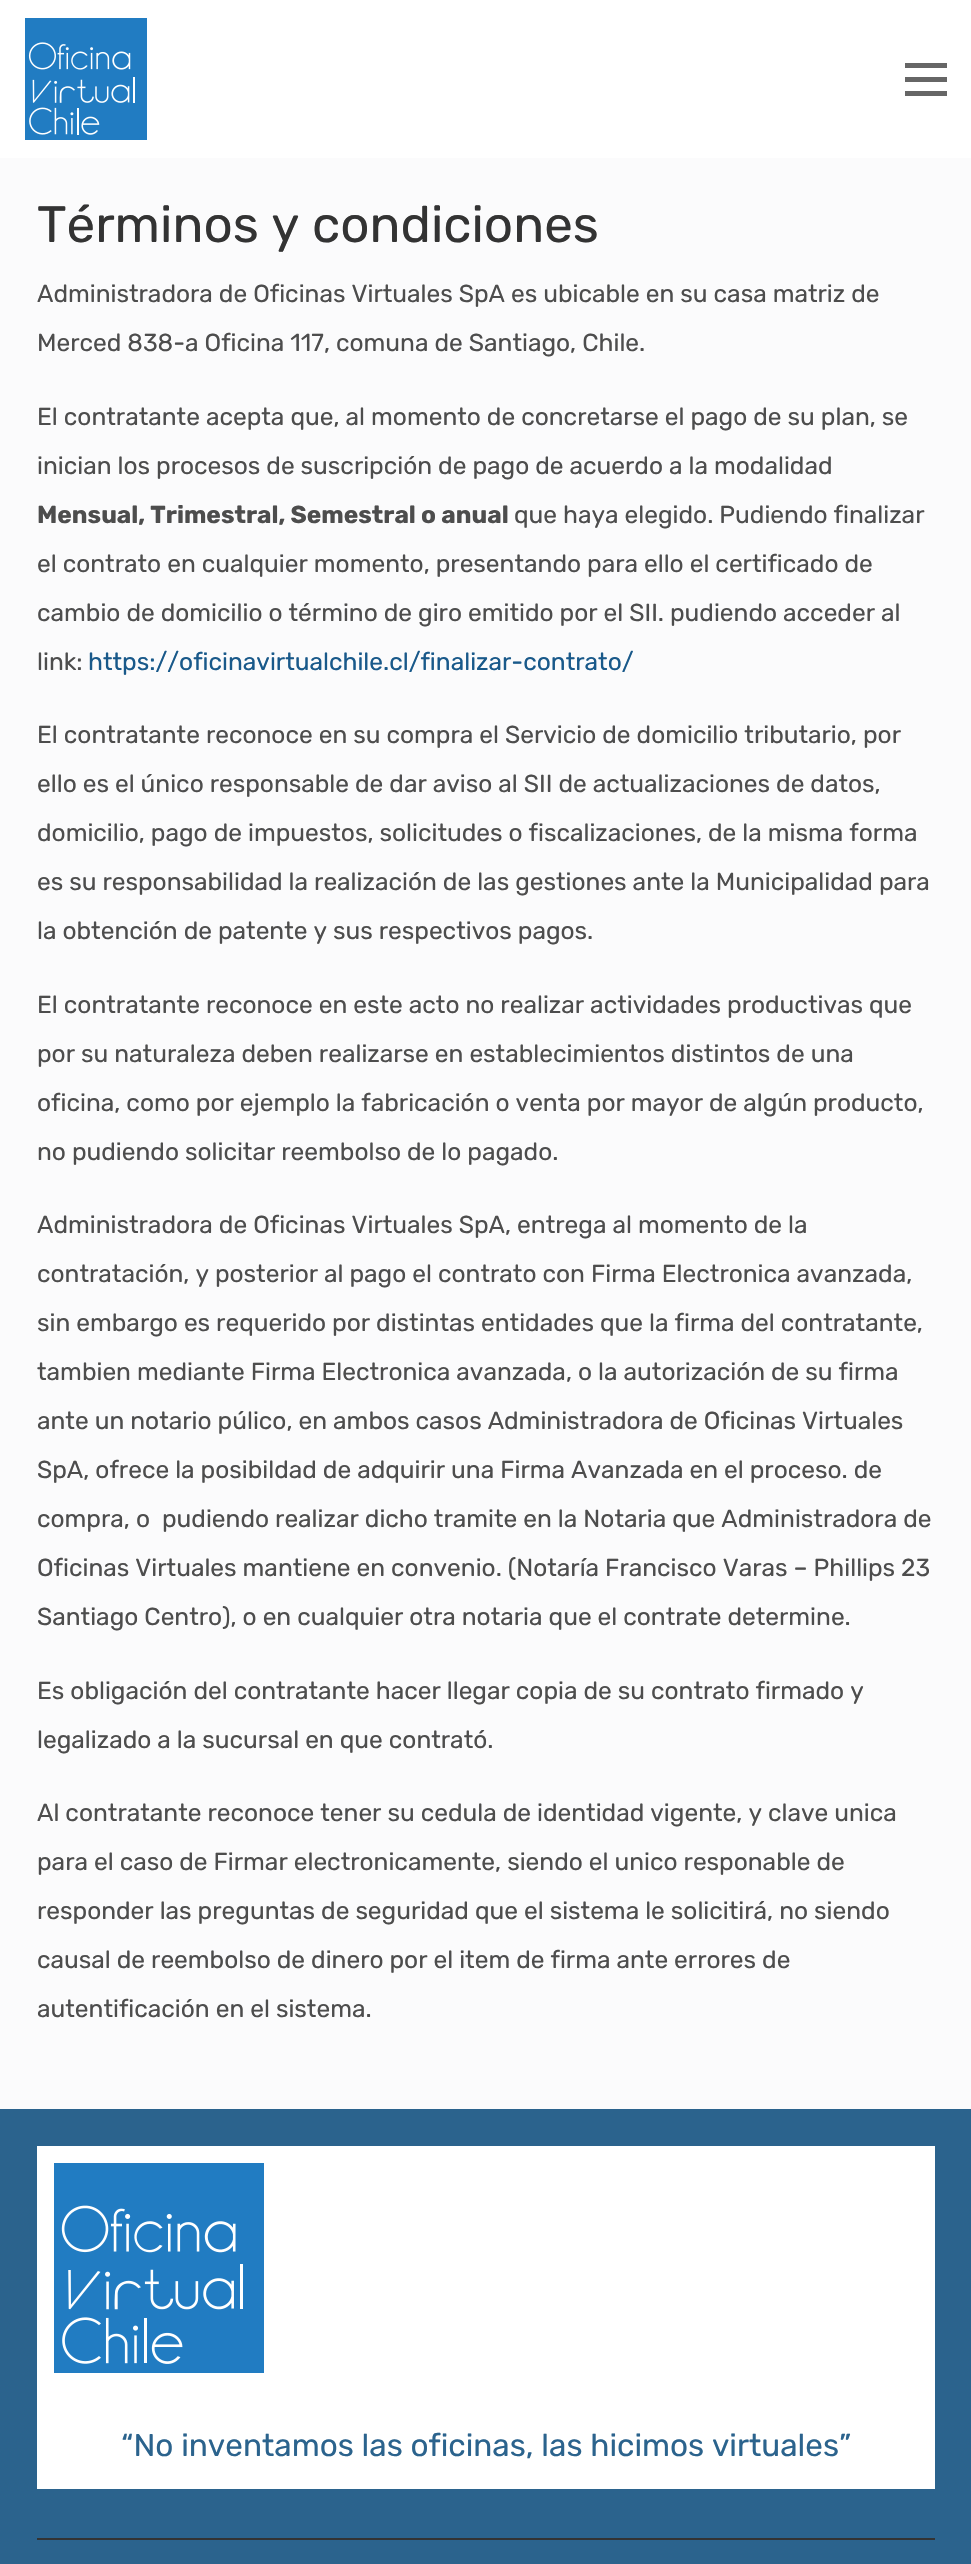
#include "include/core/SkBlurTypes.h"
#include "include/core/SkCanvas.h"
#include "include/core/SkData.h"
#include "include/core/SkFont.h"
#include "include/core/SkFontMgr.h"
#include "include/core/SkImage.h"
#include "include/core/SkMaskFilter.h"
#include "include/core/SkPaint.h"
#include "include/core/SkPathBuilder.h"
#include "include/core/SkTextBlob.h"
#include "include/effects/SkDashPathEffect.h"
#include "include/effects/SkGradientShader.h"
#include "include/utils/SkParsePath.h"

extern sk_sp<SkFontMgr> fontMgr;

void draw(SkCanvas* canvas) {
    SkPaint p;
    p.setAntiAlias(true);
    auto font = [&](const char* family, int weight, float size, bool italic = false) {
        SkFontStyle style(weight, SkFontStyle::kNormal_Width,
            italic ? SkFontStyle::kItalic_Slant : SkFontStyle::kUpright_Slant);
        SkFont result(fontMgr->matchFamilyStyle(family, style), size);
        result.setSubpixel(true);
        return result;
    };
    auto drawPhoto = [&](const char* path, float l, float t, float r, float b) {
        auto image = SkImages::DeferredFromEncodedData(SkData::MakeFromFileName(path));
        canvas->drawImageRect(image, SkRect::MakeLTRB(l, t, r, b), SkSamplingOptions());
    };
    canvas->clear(0xFFFBFBFC);
    p.setColor(0xFFFFFFFF);
    canvas->drawRect(SkRect::MakeLTRB(0, 0, 971, 158), p);
    drawPhoto("media/1.png", 25, 18, 147, 140);
    {
        const struct { float l, t, r, b; SkColor color; } items[] = {
            {905, 77, 947, 82, 0xFF666666},
            {905, 63, 947, 68, 0xFF666666},
            {905, 91, 947, 96, 0xFF666666},
        };
        for (auto [l, t, r, b, color] : items) {
            p.setColor(color);
            canvas->drawRect(SkRect::MakeLTRB(l, t, r, b), p);
        }
    }
    auto font1 = font("Rubik", 400, 51.1f);
    p.setColor(0xFF333333);
    canvas->drawString("Términos y condiciones", 37, 242, font1, p);
    auto font2 = font("Rubik", 400, 24.5f);
    p.setColor(0xFF4D4D4D);
    {
        const struct { const char* s; float x, y; } items[] = {
            {"Administradora de Oficinas Virtuales SpA es ubicable en su casa matriz de", 37, 302},
            {"Merced 838-a Oficina 117, comuna de Santiago, Chile.", 37, 351},
            {"El contratante acepta que, al momento de concretarse el pago de su plan, se", 37, 425},
            {"inician los procesos de suscripción de pago de acuerdo a la modalidad", 37, 474},
        };
        for (auto [s, x, y] : items) {
            canvas->drawString(s, x, y, font2, p);
        }
    }
    auto font3 = font("Rubik", 700, 24.5f);
    canvas->drawString("Mensual, Trimestral, Semestral o anual", 37, 523, font3, p);
    {
        const struct { const char* s; float x, y; } items[] = {
            {"que haya elegido. Pudiendo finalizar", 514, 523},
            {"el contrato en cualquier momento, presentando para ello el certificado de", 37, 572},
            {"cambio de domicilio o término de giro emitido por el SII. pudiendo acceder al", 37, 621},
            {"link:", 37, 670},
        };
        for (auto [s, x, y] : items) {
            canvas->drawString(s, x, y, font2, p);
        }
    }
    p.setColor(0xFF19598A);
    canvas->drawString("https://oficinavirtualchile.cl/finalizar-contrato/", 88, 670, font2, p);
    p.setColor(0xFF4D4D4D);
    {
        const struct { const char* s; float x, y; } items[] = {
            {"El contratante reconoce en su compra el Servicio de domicilio tributario, por", 37, 743},
            {"ello es el único responsable de dar aviso al SII de actualizaciones de datos,", 37, 792},
            {"domicilio, pago de impuestos, solicitudes o fiscalizaciones, de la misma forma", 37, 841},
            {"es su responsabilidad la realización de las gestiones ante la Municipalidad para", 37, 890},
            {"la obtención de patente y sus respectivos pagos.", 37, 939},
            {"El contratante reconoce en este acto no realizar actividades productivas que", 37, 1013},
            {"por su naturaleza deben realizarse en establecimientos distintos de una", 37, 1062},
            {"oficina, como por ejemplo la fabricación o venta por mayor de algún producto,", 37, 1111},
            {"no pudiendo solicitar reembolso de lo pagado.", 37, 1160},
            {"Administradora de Oficinas Virtuales SpA, entrega al momento de la", 37, 1233},
            {"contratación, y posterior al pago el contrato con Firma Electronica avanzada,", 37, 1282},
            {"sin embargo es requerido por distintas entidades que la firma del contratante,", 37, 1331},
            {"tambien mediante Firma Electronica avanzada, o la autorización de su firma", 37, 1380},
            {"ante un notario púlico, en ambos casos Administradora de Oficinas Virtuales", 37, 1429},
            {"SpA, ofrece la posibildad de adquirir una Firma Avanzada en el proceso. de", 37, 1478},
            {"compra, o", 37, 1527},
            {"pudiendo realizar dicho tramite en la Notaria que Administradora de", 162, 1527},
            {"Oficinas Virtuales mantiene en convenio. (Notaría Francisco Varas – Phillips 23", 37, 1576},
            {"Santiago Centro), o en cualquier otra notaria que el contrate determine.", 37, 1625},
            {"Es obligación del contratante hacer llegar copia de su contrato firmado y", 37, 1699},
            {"legalizado a la sucursal en que contrató.", 37, 1748},
            {"Al contratante reconoce tener su cedula de identidad vigente, y clave unica", 37, 1821},
            {"para el caso de Firmar electronicamente, siendo el unico responable de", 37, 1870},
            {"responder las preguntas de seguridad que el sistema le solicitirá, no siendo", 37, 1919},
            {"causal de reembolso de dinero por el item de firma ante errores de", 37, 1968},
            {"autentificación en el sistema.", 37, 2017},
        };
        for (auto [s, x, y] : items) {
            canvas->drawString(s, x, y, font2, p);
        }
    }
    p.setColor(0xFF2B638D);
    canvas->drawRect(SkRect::MakeLTRB(0, 2109, 971, 2564), p);
    p.setColor(0xFFFFFFFF);
    canvas->drawRect(SkRect::MakeLTRB(37, 2146, 935, 2489), p);
    drawPhoto("media/2.png", 54, 2163, 264, 2373);
    auto font4 = font("Rubik", 400, 31.5f);
    p.setColor(0xFF2B638D);
    canvas->drawString("“No inventamos las oficinas, las hicimos virtuales”", 121, 2456, font4, p);
    p.setColor(0xFF333333);
    canvas->drawRect(SkRect::MakeLTRB(37, 2538, 935, 2540), p);
}
